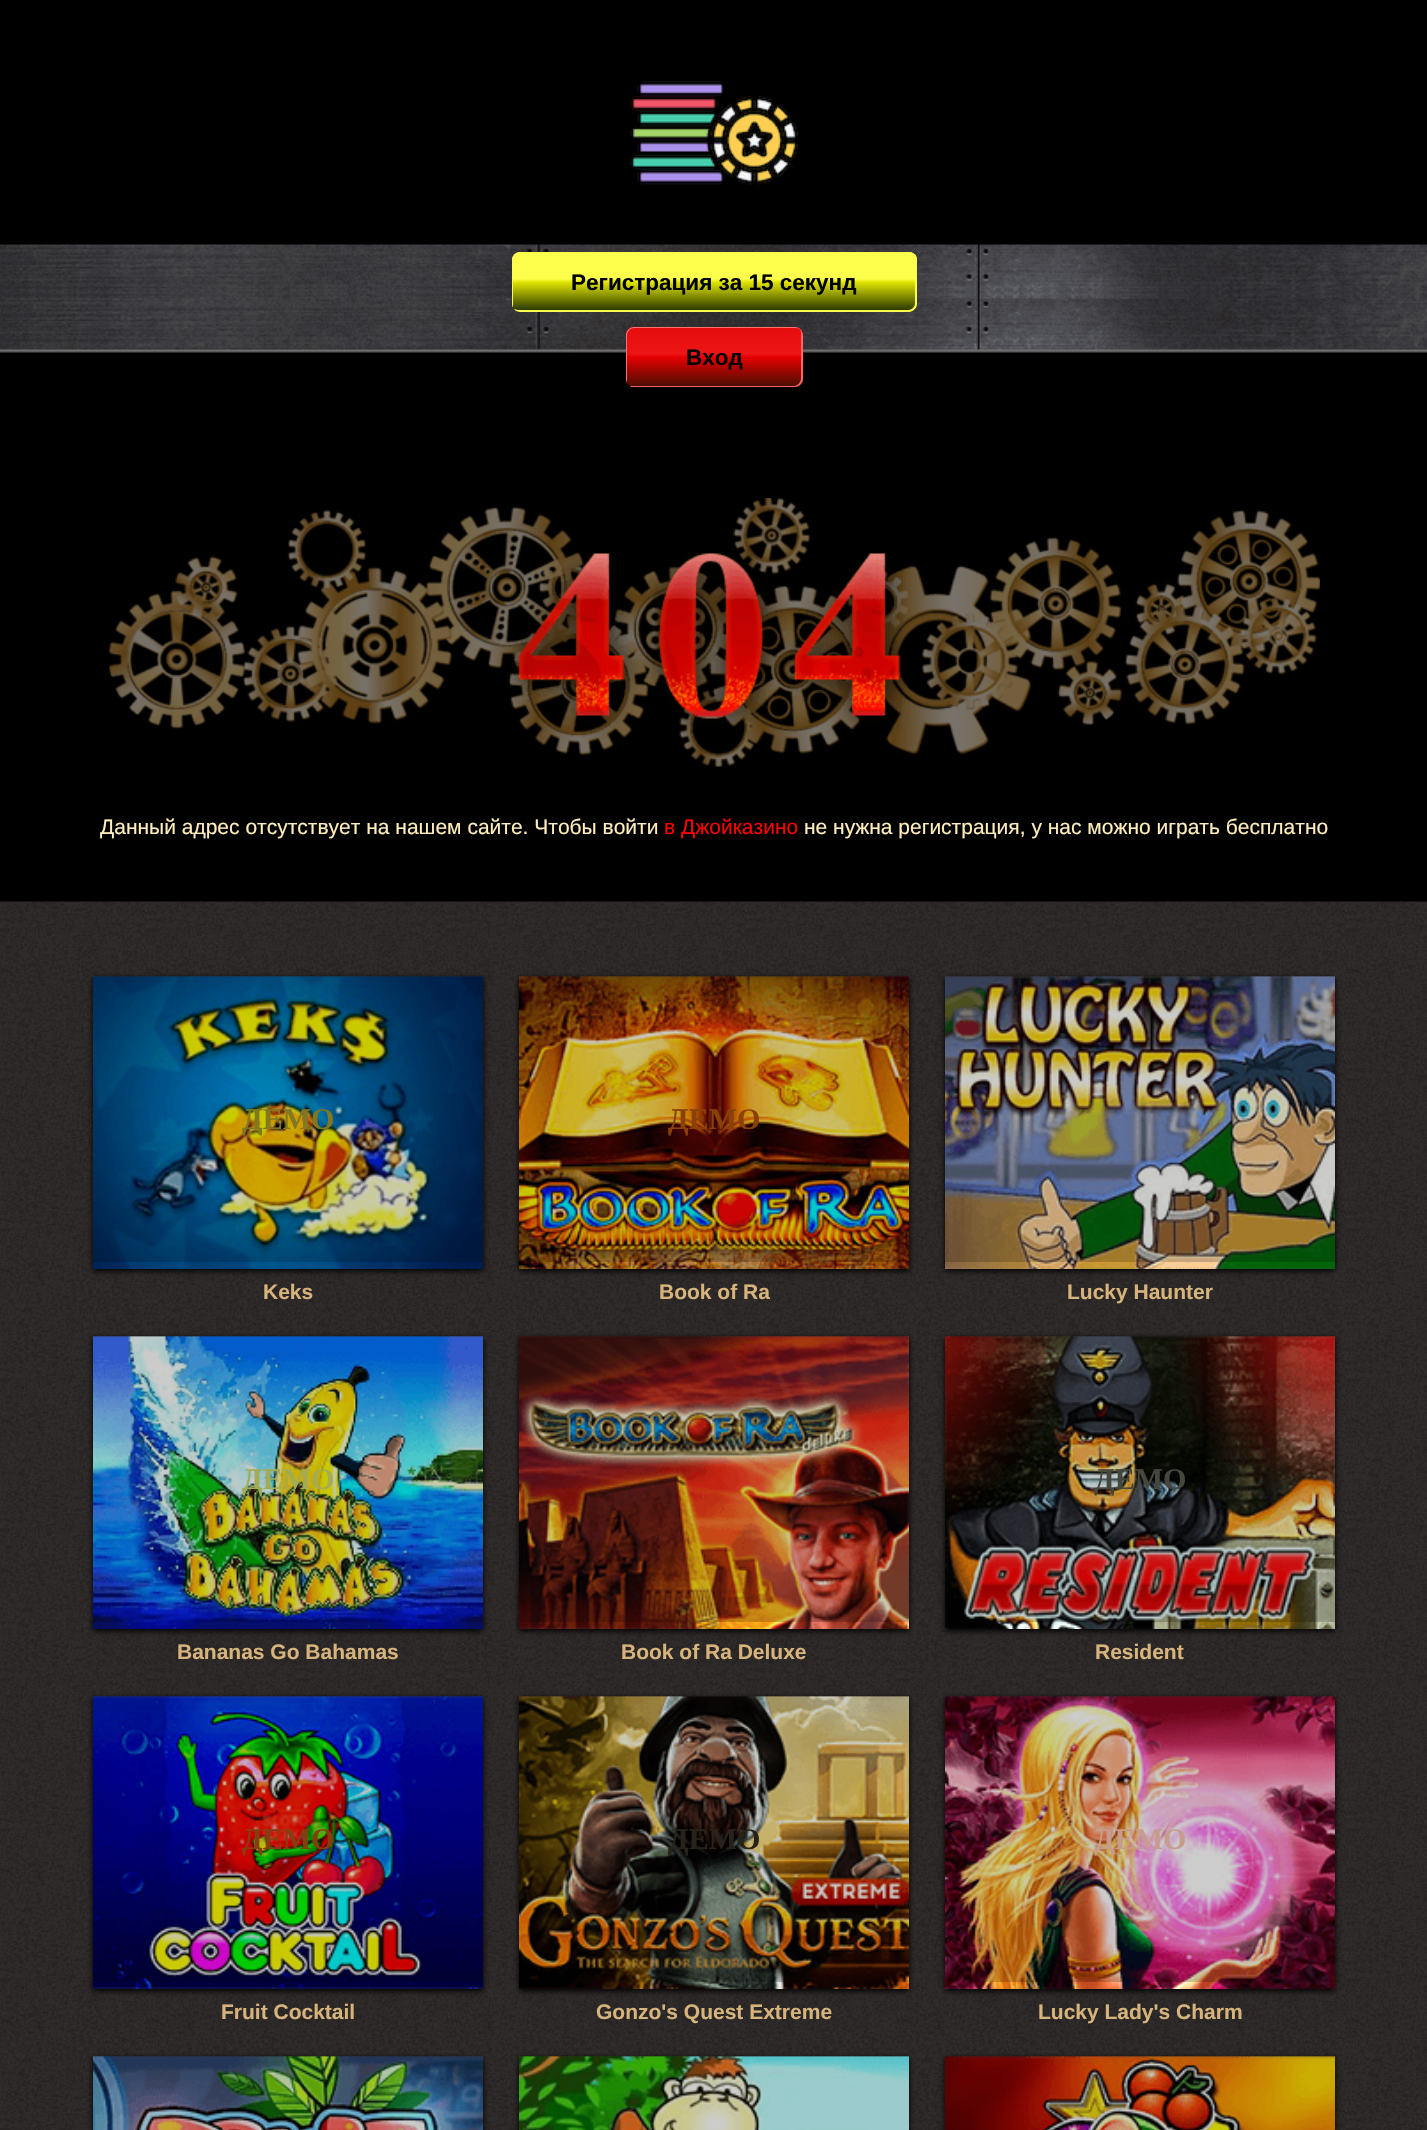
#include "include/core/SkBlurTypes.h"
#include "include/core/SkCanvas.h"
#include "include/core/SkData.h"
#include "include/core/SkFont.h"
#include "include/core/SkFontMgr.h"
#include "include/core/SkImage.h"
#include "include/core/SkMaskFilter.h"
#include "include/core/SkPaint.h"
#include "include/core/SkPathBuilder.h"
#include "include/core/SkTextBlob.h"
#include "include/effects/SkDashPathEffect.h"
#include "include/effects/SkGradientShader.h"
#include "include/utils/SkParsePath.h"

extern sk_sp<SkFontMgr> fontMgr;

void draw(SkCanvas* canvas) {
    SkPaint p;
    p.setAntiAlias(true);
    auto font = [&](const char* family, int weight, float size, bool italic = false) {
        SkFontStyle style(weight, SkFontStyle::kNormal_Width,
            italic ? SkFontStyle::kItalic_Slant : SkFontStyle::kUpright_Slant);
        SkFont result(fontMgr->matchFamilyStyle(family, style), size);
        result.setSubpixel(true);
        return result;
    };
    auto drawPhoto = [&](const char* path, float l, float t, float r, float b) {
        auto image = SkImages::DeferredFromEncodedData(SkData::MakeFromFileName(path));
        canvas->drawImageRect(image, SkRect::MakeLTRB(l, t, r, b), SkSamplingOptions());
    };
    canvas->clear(0xFF000000);
    drawPhoto("media/1.png", 0, 244, 1427, 353);
    drawPhoto("media/2.png", 630, 81, 799, 185);
    {
        const SkColor colors[] = {0xFFFCFF4C, 0xFFFCFF4C, 0xFFE1E500, 0xFF1F2D00};
        const float stops[] = {0, 0.45f, 0.5f, 1};
        const SkPoint ends[] = {{714, 252}, {714, 312}};
        p.setShader(SkGradientShader::MakeLinear(ends, colors, stops, 4, SkTileMode::kClamp));
        p.setAlpha(255);
    }
    canvas->drawRoundRect(SkRect::MakeLTRB(512, 252, 917, 312), 8, 8, p);
    p.setShader(nullptr);
    p.setColor(0xFFFCFF4C);
    canvas->drawPath(SkPathBuilder().moveTo(514, 309).cubicTo(515, 311, 518, 312, 520, 312).lineTo(909, 312).cubicTo(913, 312, 917, 308, 917, 304).lineTo(917, 260).cubicTo(917, 257, 916, 255, 914, 254).cubicTo(915, 255, 915, 256, 915, 258).lineTo(915, 303).cubicTo(915, 307, 912, 310, 908, 310).lineTo(518, 310).close().detach(), p);
    canvas->drawPath(SkPathBuilder().moveTo(520, 254).lineTo(910, 254).cubicTo(913, 254, 915, 255, 916, 256).cubicTo(915, 254, 912, 252, 909, 252).lineTo(520, 252).cubicTo(516, 252, 512, 256, 512, 260).lineTo(512, 304).cubicTo(512, 306, 513, 307, 513, 308).lineTo(513, 268).cubicTo(513, 263, 512, 254, 520, 254).close().detach(), p);
    auto font1 = font("Liberation Sans", 700, 22.5f);
    p.setColor(0xFF000000);
    canvas->drawString("Регистрация за 15 секунд", 571, 290, font1, p);
    {
        const SkColor colors[] = {0xFFE50D0D, 0xFFED1515, 0xFFE60000, 0xFF470E00};
        const float stops[] = {0, 0.45f, 0.5f, 1};
        const SkPoint ends[] = {{714, 327}, {714, 387}};
        p.setShader(SkGradientShader::MakeLinear(ends, colors, stops, 4, SkTileMode::kClamp));
        p.setAlpha(255);
    }
    canvas->drawRoundRect(SkRect::MakeLTRB(626, 327, 803, 387), 8, 8, p);
    p.setShader(nullptr);
    p.setColor(0xFFFD6464);
    canvas->drawPath(SkPathBuilder().moveTo(630, 386).cubicTo(631, 387, 632, 387, 634, 387).lineTo(795, 387).cubicTo(799, 387, 803, 383, 803, 379).lineTo(803, 335).cubicTo(803, 332, 801, 330, 799, 328).cubicTo(800, 329, 801, 331, 801, 333).lineTo(801, 378).cubicTo(801, 382, 798, 386, 794, 386).close().detach(), p);
    p.setColor(0xFFFF7272);
    canvas->drawPath(SkPathBuilder().moveTo(634, 328).lineTo(796, 328).cubicTo(798, 328, 800, 329, 801, 330).cubicTo(799, 328, 797, 327, 795, 327).lineTo(634, 327).cubicTo(630, 327, 626, 331, 626, 335).lineTo(626, 379).cubicTo(626, 381, 627, 382, 627, 384).lineTo(627, 381).lineTo(627, 336).cubicTo(627, 332, 630, 328, 634, 328).close().detach(), p);
    p.setColor(0xFF000000);
    canvas->drawString("Вход", 686, 365, font1, p);
    drawPhoto("media/3.png", 109, 498, 1320, 767);
    auto font2 = font("Liberation Sans", 400, 21);
    p.setColor(0xFFFFEDBC);
    canvas->drawString("Данный адрес отсутствует на нашем сайте. Чтобы войти", 100, 834, font2, p);
    p.setColor(0xFFFF0000);
    canvas->drawString("в Джойказино", 664, 834, font2, p);
    p.setColor(0xFFFFEDBC);
    canvas->drawString("не нужна регистрация, у нас можно играть бесплатно", 804, 834, font2, p);
    drawPhoto("media/4.png", 0, 901, 1427, 2130);
    p.setColor(0xFF000000);
    p.setMaskFilter(SkMaskFilter::MakeBlur(kNormal_SkBlurStyle, 3));
    canvas->drawRect(SkRect::MakeLTRB(93, 978, 483, 1271), p);
    p.setMaskFilter(nullptr);
    drawPhoto("media/5.png", 93, 976, 483, 1269);
    auto font3 = font("Liberation Serif", 700, 30);
    p.setColor(0xFF827821);
    canvas->drawString("ДЕМО", 242, 1129, font3, p);
    auto font4 = font("Liberation Sans", 700, 21);
    p.setColor(0xFFD7B47C);
    canvas->drawString("Keks", 263, 1299, font4, p);
    canvas->save();
    canvas->clipPath(SkPathBuilder(SkPathFillType::kEvenOdd).moveTo(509, 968).lineTo(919, 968).lineTo(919, 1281).lineTo(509, 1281).close().moveTo(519, 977).lineTo(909, 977).lineTo(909, 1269).lineTo(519, 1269).close().detach(), true);
    p.setColor(0xFF000000);
    p.setMaskFilter(SkMaskFilter::MakeBlur(kNormal_SkBlurStyle, 3));
    canvas->drawRect(SkRect::MakeLTRB(519, 978, 909, 1271), p);
    p.setMaskFilter(nullptr);
    canvas->restore();
    drawPhoto("media/6.png", 519, 976, 909, 1269);
    p.setColor(0x33000000);
    canvas->drawRect(SkRect::MakeLTRB(519, 977, 909, 1262), p);
    p.setColor(0xFF894108);
    canvas->drawString("ДЕМО", 668, 1129, font3, p);
    p.setColor(0xFFD7B47C);
    canvas->drawString("Book of Ra", 659, 1299, font4, p);
    canvas->save();
    canvas->clipPath(SkPathBuilder(SkPathFillType::kEvenOdd).moveTo(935, 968).lineTo(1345, 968).lineTo(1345, 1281).lineTo(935, 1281).close().moveTo(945, 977).lineTo(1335, 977).lineTo(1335, 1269).lineTo(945, 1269).close().detach(), true);
    p.setColor(0xFF000000);
    p.setMaskFilter(SkMaskFilter::MakeBlur(kNormal_SkBlurStyle, 3));
    canvas->drawRect(SkRect::MakeLTRB(945, 978, 1335, 1271), p);
    p.setMaskFilter(nullptr);
    canvas->restore();
    drawPhoto("media/7.png", 945, 976, 1335, 1269);
    p.setColor(0x33000000);
    canvas->drawRect(SkRect::MakeLTRB(945, 977, 1335, 1262), p);
    p.setColor(0xFFD7B47C);
    canvas->drawString("Lucky Haunter", 1067, 1299, font4, p);
    p.setColor(0xFF000000);
    p.setMaskFilter(SkMaskFilter::MakeBlur(kNormal_SkBlurStyle, 3));
    canvas->drawRect(SkRect::MakeLTRB(93, 1338, 483, 1631), p);
    p.setMaskFilter(nullptr);
    drawPhoto("media/8.png", 93, 1336, 483, 1629);
    p.setColor(0xFFA3AC54);
    canvas->drawString("ДЕМО", 242, 1489, font3, p);
    p.setColor(0xFFD7B47C);
    canvas->drawString("Bananas Go Bahamas", 177, 1659, font4, p);
    canvas->save();
    canvas->clipPath(SkPathBuilder(SkPathFillType::kEvenOdd).moveTo(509, 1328).lineTo(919, 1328).lineTo(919, 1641).lineTo(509, 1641).close().moveTo(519, 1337).lineTo(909, 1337).lineTo(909, 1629).lineTo(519, 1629).close().detach(), true);
    p.setColor(0xFF000000);
    p.setMaskFilter(SkMaskFilter::MakeBlur(kNormal_SkBlurStyle, 3));
    canvas->drawRect(SkRect::MakeLTRB(519, 1338, 909, 1631), p);
    p.setMaskFilter(nullptr);
    canvas->restore();
    drawPhoto("media/9.png", 519, 1336, 909, 1629);
    p.setColor(0x33000000);
    canvas->drawRect(SkRect::MakeLTRB(519, 1337, 909, 1622), p);
    p.setColor(0xFFD7B47C);
    canvas->drawString("Book of Ra Deluxe", 621, 1659, font4, p);
    canvas->save();
    canvas->clipPath(SkPathBuilder(SkPathFillType::kEvenOdd).moveTo(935, 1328).lineTo(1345, 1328).lineTo(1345, 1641).lineTo(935, 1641).close().moveTo(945, 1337).lineTo(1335, 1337).lineTo(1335, 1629).lineTo(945, 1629).close().detach(), true);
    p.setColor(0xFF000000);
    p.setMaskFilter(SkMaskFilter::MakeBlur(kNormal_SkBlurStyle, 3));
    canvas->drawRect(SkRect::MakeLTRB(945, 1338, 1335, 1631), p);
    p.setMaskFilter(nullptr);
    canvas->restore();
    drawPhoto("media/10.png", 945, 1336, 1335, 1629);
    p.setColor(0x33000000);
    canvas->drawRect(SkRect::MakeLTRB(945, 1337, 1335, 1622), p);
    p.setColor(0xFF45463C);
    canvas->drawString("ДЕМО", 1094, 1489, font3, p);
    p.setColor(0xFFD7B47C);
    canvas->drawString("Resident", 1095, 1659, font4, p);
    canvas->save();
    canvas->clipPath(SkPathBuilder(SkPathFillType::kEvenOdd).moveTo(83, 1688).lineTo(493, 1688).lineTo(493, 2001).lineTo(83, 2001).close().moveTo(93, 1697).lineTo(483, 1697).lineTo(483, 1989).lineTo(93, 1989).close().detach(), true);
    p.setColor(0xFF000000);
    p.setMaskFilter(SkMaskFilter::MakeBlur(kNormal_SkBlurStyle, 3));
    canvas->drawRect(SkRect::MakeLTRB(93, 1698, 483, 1991), p);
    p.setMaskFilter(nullptr);
    canvas->restore();
    drawPhoto("media/11.png", 93, 1696, 483, 1989);
    p.setColor(0x33000000);
    canvas->drawRect(SkRect::MakeLTRB(93, 1697, 483, 1982), p);
    p.setColor(0xFF853F0F);
    canvas->drawString("ДЕМО", 242, 1849, font3, p);
    p.setColor(0xFFD7B47C);
    canvas->drawString("Fruit Cocktail", 221, 2019, font4, p);
    canvas->save();
    canvas->clipPath(SkPathBuilder(SkPathFillType::kEvenOdd).moveTo(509, 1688).lineTo(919, 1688).lineTo(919, 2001).lineTo(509, 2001).close().moveTo(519, 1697).lineTo(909, 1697).lineTo(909, 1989).lineTo(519, 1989).close().detach(), true);
    p.setColor(0xFF000000);
    p.setMaskFilter(SkMaskFilter::MakeBlur(kNormal_SkBlurStyle, 3));
    canvas->drawRect(SkRect::MakeLTRB(519, 1698, 909, 1991), p);
    p.setMaskFilter(nullptr);
    canvas->restore();
    drawPhoto("media/12.png", 519, 1696, 909, 1989);
    p.setColor(0x33000000);
    canvas->drawRect(SkRect::MakeLTRB(519, 1697, 909, 1982), p);
    p.setColor(0xFF28231A);
    canvas->drawString("ДЕМО", 668, 1849, font3, p);
    p.setColor(0xFFD7B47C);
    canvas->drawString("Gonzo's Quest Extreme", 596, 2019, font4, p);
    canvas->save();
    canvas->clipPath(SkPathBuilder(SkPathFillType::kEvenOdd).moveTo(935, 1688).lineTo(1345, 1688).lineTo(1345, 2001).lineTo(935, 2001).close().moveTo(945, 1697).lineTo(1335, 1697).lineTo(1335, 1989).lineTo(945, 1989).close().detach(), true);
    p.setColor(0xFF000000);
    p.setMaskFilter(SkMaskFilter::MakeBlur(kNormal_SkBlurStyle, 3));
    canvas->drawRect(SkRect::MakeLTRB(945, 1698, 1335, 1991), p);
    p.setMaskFilter(nullptr);
    canvas->restore();
    drawPhoto("media/13.png", 945, 1696, 1335, 1989);
    p.setColor(0x33000000);
    canvas->drawRect(SkRect::MakeLTRB(945, 1697, 1335, 1982), p);
    p.setColor(0xFFC79C8F);
    canvas->drawString("ДЕМО", 1094, 1849, font3, p);
    p.setColor(0xFFD7B47C);
    canvas->drawString("Lucky Lady's Charm", 1038, 2019, font4, p);
    canvas->save();
    canvas->clipPath(SkPathBuilder(SkPathFillType::kEvenOdd).moveTo(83, 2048).lineTo(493, 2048).lineTo(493, 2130).lineTo(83, 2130).close().moveTo(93, 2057).lineTo(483, 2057).lineTo(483, 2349).lineTo(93, 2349).close().detach(), true);
    p.setColor(0xFF000000);
    p.setMaskFilter(SkMaskFilter::MakeBlur(kNormal_SkBlurStyle, 3));
    canvas->drawRect(SkRect::MakeLTRB(93, 2058, 483, 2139), p);
    p.setMaskFilter(nullptr);
    canvas->restore();
    drawPhoto("media/14.png", 93, 2056, 483, 2130);
    p.setMaskFilter(SkMaskFilter::MakeBlur(kNormal_SkBlurStyle, 3));
    canvas->drawRect(SkRect::MakeLTRB(519, 2058, 909, 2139), p);
    p.setMaskFilter(nullptr);
    drawPhoto("media/15.png", 519, 2056, 909, 2130);
    canvas->save();
    canvas->clipPath(SkPathBuilder(SkPathFillType::kEvenOdd).moveTo(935, 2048).lineTo(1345, 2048).lineTo(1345, 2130).lineTo(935, 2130).close().moveTo(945, 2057).lineTo(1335, 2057).lineTo(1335, 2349).lineTo(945, 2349).close().detach(), true);
    p.setMaskFilter(SkMaskFilter::MakeBlur(kNormal_SkBlurStyle, 3));
    canvas->drawRect(SkRect::MakeLTRB(945, 2058, 1335, 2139), p);
    p.setMaskFilter(nullptr);
    canvas->restore();
    drawPhoto("media/16.png", 945, 2056, 1335, 2130);
    p.setColor(0x33000000);
    canvas->drawRect(SkRect::MakeLTRB(945, 2057, 1335, 2130), p);
}
